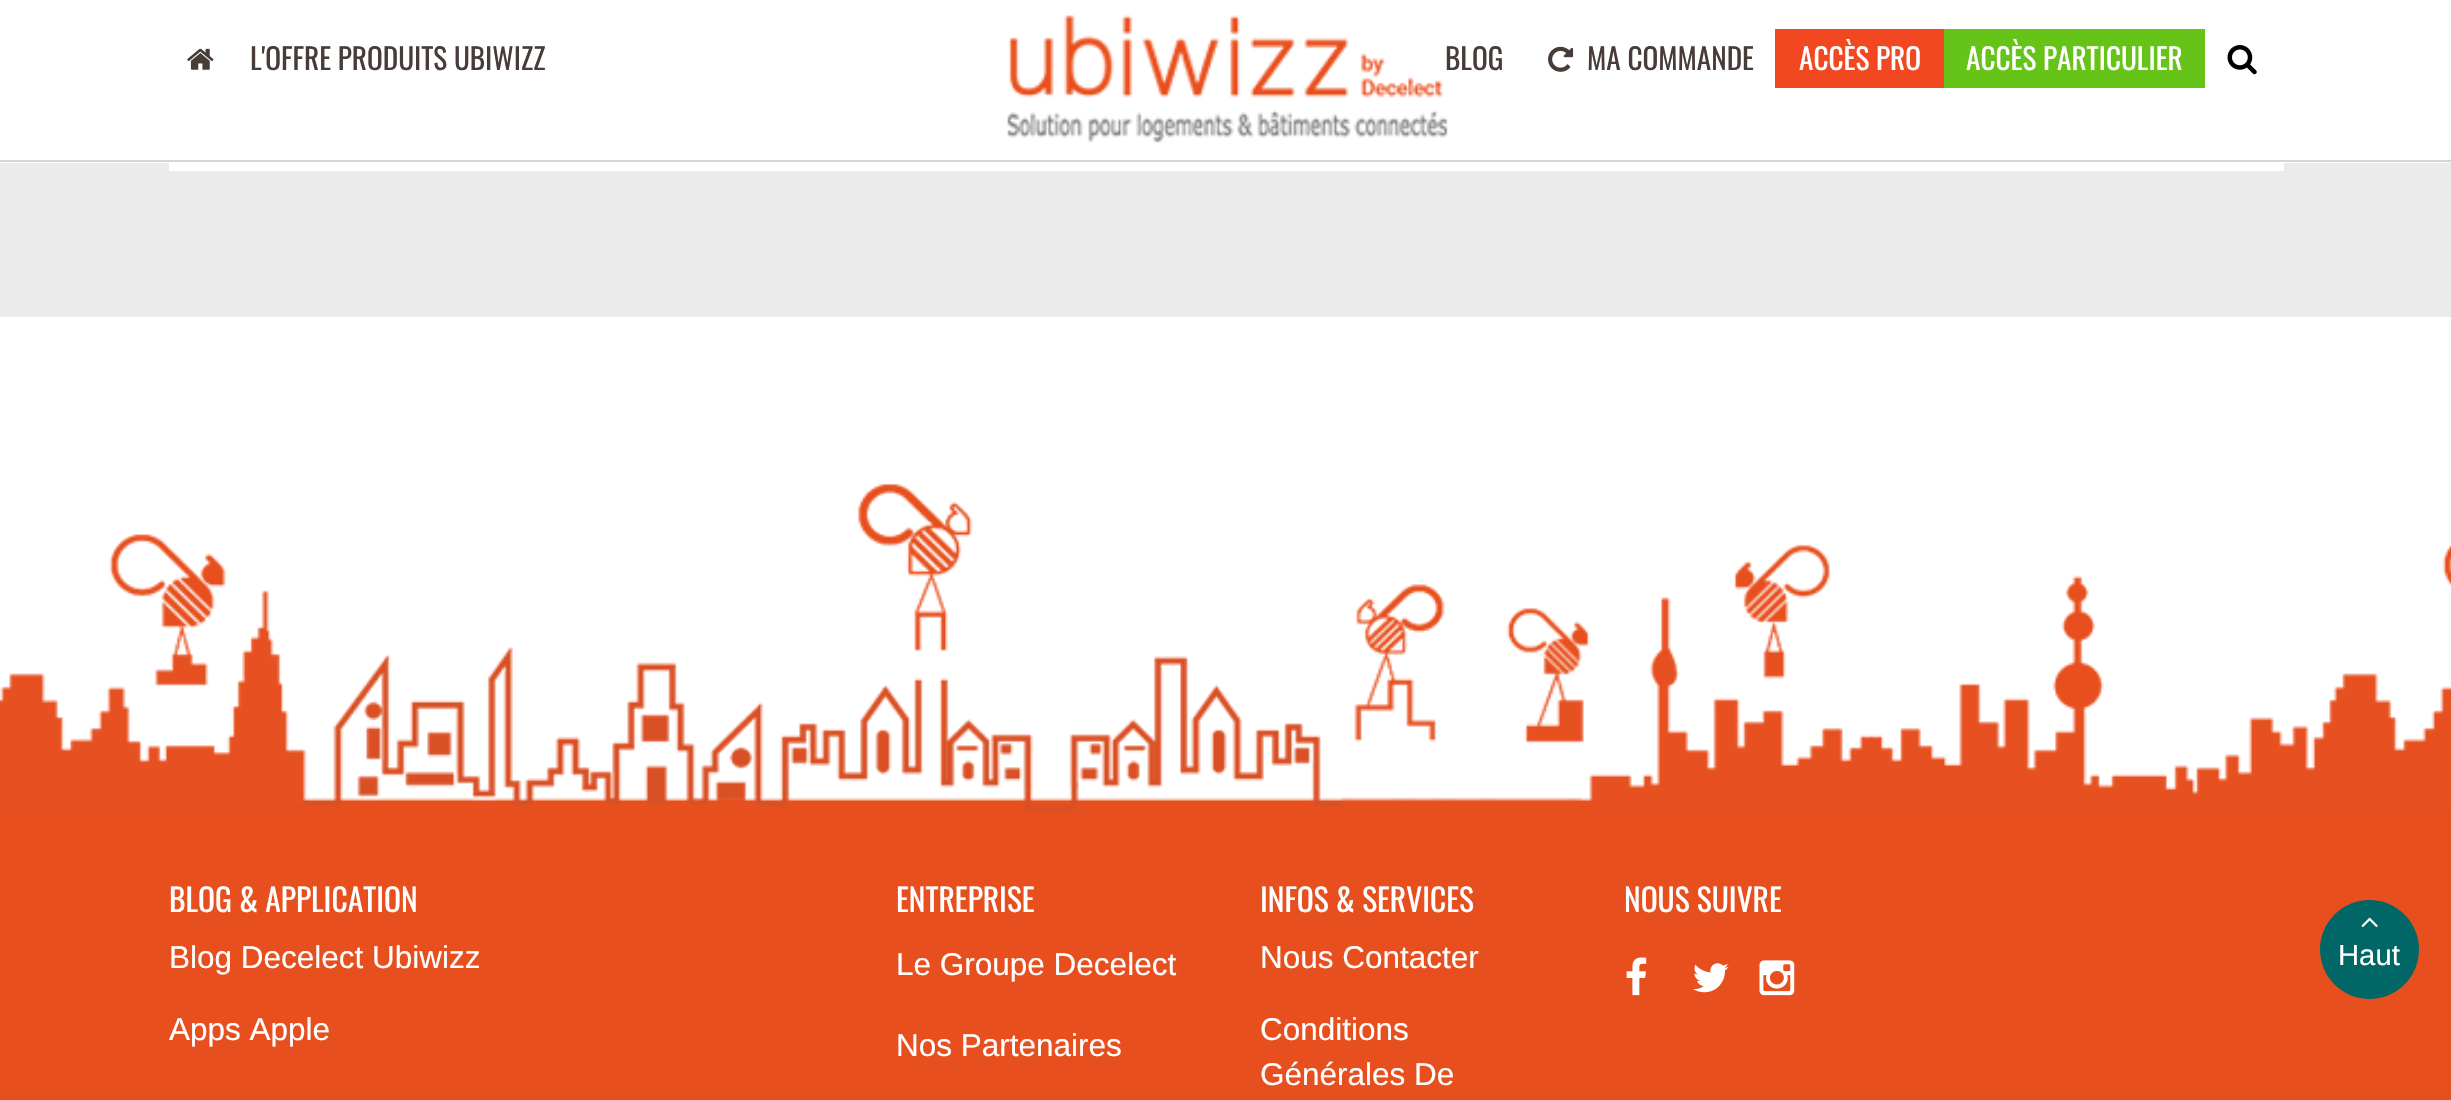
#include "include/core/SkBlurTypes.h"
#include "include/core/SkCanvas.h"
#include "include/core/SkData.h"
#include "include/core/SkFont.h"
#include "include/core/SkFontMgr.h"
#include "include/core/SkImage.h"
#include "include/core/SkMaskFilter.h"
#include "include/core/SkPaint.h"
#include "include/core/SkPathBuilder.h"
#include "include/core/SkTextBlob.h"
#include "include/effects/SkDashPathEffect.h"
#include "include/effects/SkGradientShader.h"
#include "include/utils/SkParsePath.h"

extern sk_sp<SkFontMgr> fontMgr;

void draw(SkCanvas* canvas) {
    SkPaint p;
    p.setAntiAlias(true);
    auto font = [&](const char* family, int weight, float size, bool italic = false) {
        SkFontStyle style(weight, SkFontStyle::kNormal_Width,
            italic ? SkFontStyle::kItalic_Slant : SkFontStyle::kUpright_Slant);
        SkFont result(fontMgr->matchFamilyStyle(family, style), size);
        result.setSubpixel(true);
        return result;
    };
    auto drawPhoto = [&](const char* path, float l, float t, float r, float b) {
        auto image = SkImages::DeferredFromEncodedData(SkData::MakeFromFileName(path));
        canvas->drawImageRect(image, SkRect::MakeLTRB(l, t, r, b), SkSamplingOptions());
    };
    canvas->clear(0xFFEBEBEB);
    p.setColor(0xFFFFFFFF);
    canvas->drawRect(SkRect::MakeLTRB(0, 0, 2451, 163), p);
    drawPhoto("media/1.png", 187, 48, 214, 70);
    auto font1 = font("Oswald", 400, 29.25f);
    p.setColor(0xFF473C38);
    canvas->drawString("L'OFFRE PRODUITS UBIWIZZ", 250, 70, font1, p);
    drawPhoto("media/2.png", 1007, 15, 1448, 143);
    canvas->drawString("BLOG", 1445, 70, font1, p);
    drawPhoto("media/3.png", 1548, 46, 1574, 72);
    canvas->drawString("MA COMMANDE", 1587, 70, font1, p);
    p.setColor(0xFFF24821);
    canvas->drawRect(SkRect::MakeLTRB(1775, 29, 1944, 88), p);
    p.setColor(0xFFFFFFFF);
    canvas->drawString("ACCÈS PRO", 1799, 70, font1, p);
    p.setColor(0xFF66C317);
    canvas->drawRect(SkRect::MakeLTRB(1944, 29, 2205, 88), p);
    p.setColor(0xFFFFFFFF);
    canvas->drawString("ACCÈS PARTICULIER", 1966, 70, font1, p);
    drawPhoto("media/4.png", 2227, 45, 2257, 75);
    {
        const struct { float l, t, r, b; SkColor color; } items[] = {
            {0, 160, 2451, 162, 0xFFDAD3D3},
            {169, 163, 2284, 171, 0xFFFFFFFF},
            {0, 317, 2451, 801, 0xFFFFFFFF},
        };
        for (auto [l, t, r, b, color] : items) {
            p.setColor(color);
            canvas->drawRect(SkRect::MakeLTRB(l, t, r, b), p);
        }
    }
    drawPhoto("media/5.png", 0, 483, 2451, 1100);
    auto font2 = font("Oswald", 400, 31.5f);
    canvas->drawString("BLOG & APPLICATION", 169, 912, font2, p);
    auto font3 = font("Arimo", 400, 31.5f);
    canvas->drawString("Blog Decelect Ubiwizz", 169, 968, font3, p);
    canvas->drawString("Apps Apple", 169, 1040, font3, p);
    canvas->drawString("ENTREPRISE", 896, 912, font2, p);
    canvas->drawString("Le Groupe Decelect", 896, 975, font3, p);
    canvas->drawString("Nos Partenaires", 896, 1056, font3, p);
    canvas->drawString("INFOS & SERVICES", 1260, 912, font2, p);
    {
        const struct { const char* s; float x, y; } items[] = {
            {"Nous Contacter", 1260, 968},
            {"Conditions", 1260, 1040},
            {"Générales De", 1260, 1085},
        };
        for (auto [s, x, y] : items) {
            canvas->drawString(s, x, y, font3, p);
        }
    }
    canvas->drawString("NOUS SUIVRE", 1624, 912, font2, p);
    drawPhoto("media/6.png", 1626, 957, 1647, 996);
    drawPhoto("media/7.png", 1693, 963, 1729, 993);
    drawPhoto("media/8.png", 1759, 960, 1795, 996);
    p.setColor(0xFF006666);
    canvas->drawCircle(2369.5f, 949.5f, 49.5f, p);
    drawPhoto("media/9.png", 2361, 917, 2378, 928);
    auto font4 = font("Arimo", 400, 29.25f);
    p.setColor(0xFFFFFFFF);
    canvas->drawString("Haut", 2338, 965, font4, p);
}
